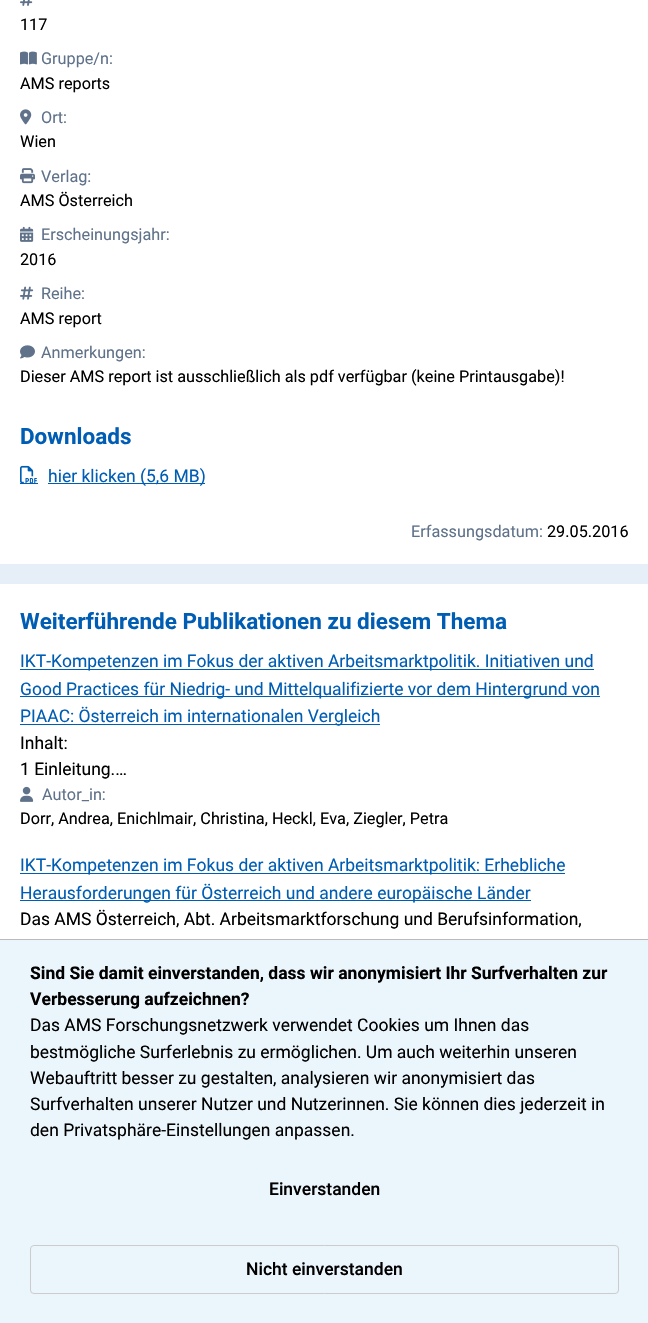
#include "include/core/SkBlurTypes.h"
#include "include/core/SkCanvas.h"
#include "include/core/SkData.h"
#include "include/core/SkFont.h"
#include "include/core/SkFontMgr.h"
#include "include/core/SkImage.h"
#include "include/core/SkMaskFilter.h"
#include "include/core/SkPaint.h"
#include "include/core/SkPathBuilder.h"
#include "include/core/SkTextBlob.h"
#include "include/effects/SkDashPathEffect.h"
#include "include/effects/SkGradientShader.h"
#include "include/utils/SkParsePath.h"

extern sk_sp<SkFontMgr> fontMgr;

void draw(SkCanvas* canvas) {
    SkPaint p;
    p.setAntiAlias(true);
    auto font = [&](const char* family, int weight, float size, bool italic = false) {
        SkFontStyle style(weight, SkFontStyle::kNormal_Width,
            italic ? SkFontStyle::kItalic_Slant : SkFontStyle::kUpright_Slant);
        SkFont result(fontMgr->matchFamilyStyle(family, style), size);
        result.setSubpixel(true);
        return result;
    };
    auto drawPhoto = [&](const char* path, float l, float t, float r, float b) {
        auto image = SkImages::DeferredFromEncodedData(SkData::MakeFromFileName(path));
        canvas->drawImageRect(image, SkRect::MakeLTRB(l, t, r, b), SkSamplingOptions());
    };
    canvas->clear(0xFFE6EFF8);
    p.setColor(0xFFFFFFFF);
    canvas->drawRect(SkRect::MakeLTRB(0, 0, 648, 564), p);
    drawPhoto("media/1.png", 20, 0, 33, 6);
    auto font1 = font("Roboto", 400, 16.25f);
    p.setColor(0xFF000000);
    canvas->drawString("117", 20, 30, font1, p);
    drawPhoto("media/2.png", 20, 51, 37, 65);
    p.setColor(0xFF5F728A);
    canvas->drawString("Gruppe/n:", 41, 64, font1, p);
    p.setColor(0xFF000000);
    canvas->drawString("AMS reports", 20, 89, font1, p);
    drawPhoto("media/3.png", 20, 109, 32, 125);
    p.setColor(0xFF5F728A);
    canvas->drawString("Ort:", 41, 123, font1, p);
    p.setColor(0xFF000000);
    canvas->drawString("Wien", 20, 147, font1, p);
    drawPhoto("media/4.png", 20, 168, 35, 184);
    p.setColor(0xFF5F728A);
    canvas->drawString("Verlag:", 41, 182, font1, p);
    p.setColor(0xFF000000);
    canvas->drawString("AMS Österreich", 20, 206, font1, p);
    drawPhoto("media/5.png", 20, 226, 34, 242);
    p.setColor(0xFF5F728A);
    canvas->drawString("Erscheinungsjahr:", 41, 240, font1, p);
    p.setColor(0xFF000000);
    canvas->drawString("2016", 20, 265, font1, p);
    drawPhoto("media/6.png", 20, 286, 34, 300);
    p.setColor(0xFF5F728A);
    canvas->drawString("Reihe:", 41, 299, font1, p);
    p.setColor(0xFF000000);
    canvas->drawString("AMS report", 20, 324, font1, p);
    drawPhoto("media/7.png", 20, 345, 35, 359);
    p.setColor(0xFF5F728A);
    canvas->drawString("Anmerkungen:", 41, 358, font1, p);
    p.setColor(0xFF000000);
    canvas->drawString("Dieser AMS report ist ausschließlich als pdf verfügbar (keine Printausgabe)!", 20, 382, font1, p);
    auto font2 = font("Roboto", 700, 22.5f);
    p.setColor(0xFF005DB4);
    canvas->drawString("Downloads", 20, 444, font2, p);
    drawPhoto("media/8.png", 20, 465, 37, 483);
    canvas->drawRect(SkRect::MakeLTRB(20, 483, 38, 484), p);
    canvas->drawRect(SkRect::MakeLTRB(48, 483, 205, 484), p);
    auto font3 = font("Roboto", 400, 17.5f);
    canvas->drawString("hier klicken (5,6 MB)", 48, 482, font3, p);
    p.setColor(0xFF5F728A);
    canvas->drawString("Erfassungsdatum:", 411, 537, font1, p);
    p.setColor(0xFF000000);
    canvas->drawString("29.05.2016", 547, 537, font1, p);
    p.setColor(0xFFFFFFFF);
    canvas->drawRect(SkRect::MakeLTRB(0, 584, 648, 939), p);
    p.setColor(0xFF005DB4);
    canvas->drawString("Weiterführende Publikationen zu diesem Thema", 20, 629, font2, p);
    canvas->drawRect(SkRect::MakeLTRB(20, 669, 594, 670), p);
    canvas->drawString("IKT-Kompetenzen im Fokus der aktiven Arbeitsmarktpolitik. Initiativen und", 20, 667, font3, p);
    canvas->drawRect(SkRect::MakeLTRB(20, 696, 600, 697), p);
    canvas->drawString("Good Practices für Niedrig- und Mittelqualifizierte vor dem Hintergrund von", 20, 695, font3, p);
    canvas->drawRect(SkRect::MakeLTRB(20, 724, 380, 725), p);
    canvas->drawString("PIAAC: Österreich im internationalen Vergleich", 20, 722, font3, p);
    p.setColor(0xFF000000);
    canvas->drawString("Inhalt:", 20, 749, font3, p);
    canvas->drawString("1 Einleitung.…", 20, 775, font3, p);
    drawPhoto("media/9.png", 20, 786, 34, 802);
    p.setColor(0xFF5F728A);
    canvas->drawString("Autor_in:", 42, 800, font1, p);
    p.setColor(0xFF000000);
    canvas->drawString("Dorr, Andrea, Enichlmair, Christina, Heckl, Eva, Ziegler, Petra", 20, 824, font1, p);
    p.setColor(0xFF005DB4);
    canvas->drawRect(SkRect::MakeLTRB(20, 873, 565, 874), p);
    canvas->drawString("IKT-Kompetenzen im Fokus der aktiven Arbeitsmarktpolitik: Erhebliche", 20, 871, font3, p);
    canvas->drawRect(SkRect::MakeLTRB(20, 900, 531, 901), p);
    canvas->drawString("Herausforderungen für Österreich und andere europäische Länder", 20, 899, font3, p);
    p.setColor(0xFF000000);
    canvas->drawString("Das AMS Österreich, Abt. Arbeitsmarktforschung und Berufsinformation,", 20, 925, font3, p);
    p.setColor(0xFFEBF5FC);
    canvas->drawRect(SkRect::MakeLTRB(0, 940, 648, 1323), p);
    p.setColor(0xFFBABABA);
    canvas->drawRect(SkRect::MakeLTRB(0, 939, 648, 940), p);
    auto font4 = font("Roboto", 700, 17.5f);
    p.setColor(0xFF000000);
    canvas->drawString("Sind Sie damit einverstanden, dass wir anonymisiert Ihr Surfverhalten zur", 30, 979, font4, p);
    canvas->drawString("Verbesserung aufzeichnen?", 30, 1005, font4, p);
    {
        const struct { const char* s; float x, y; } items[] = {
            {"Das AMS Forschungsnetzwerk verwendet Cookies um Ihnen das", 30, 1031},
            {"bestmögliche Surferlebnis zu ermöglichen. Um auch weiterhin unseren", 30, 1058},
            {"Webauftritt besser zu gestalten, analysieren wir anonymisiert das", 30, 1084},
            {"Surfverhalten unserer Nutzer und Nutzerinnen. Sie können dies jederzeit in", 30, 1110},
            {"den Privatsphäre-Einstellungen anpassen.", 30, 1136},
        };
        for (auto [s, x, y] : items) {
            canvas->drawString(s, x, y, font3, p);
        }
    }
    auto font5 = font("Roboto", 500, 17.5f);
    canvas->drawString("Einverstanden", 269, 1195, font5, p);
    p.setStyle(SkPaint::kStroke_Style);
    p.setStrokeWidth(1);
    p.setColor(0xFFCCCCCC);
    canvas->drawRoundRect(SkRect::MakeLTRB(30.5f, 1245.5f, 618.5f, 1293.5f), 3.5f, 3.5f, p);
    p.setStyle(SkPaint::kFill_Style);
    p.setColor(0xFF000000);
    canvas->drawString("Nicht einverstanden", 246, 1275, font5, p);
}
